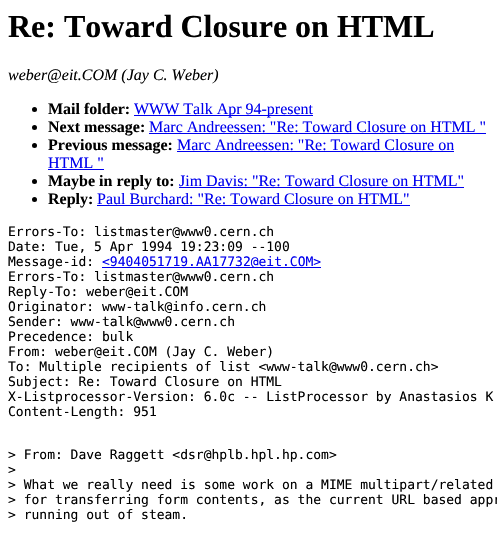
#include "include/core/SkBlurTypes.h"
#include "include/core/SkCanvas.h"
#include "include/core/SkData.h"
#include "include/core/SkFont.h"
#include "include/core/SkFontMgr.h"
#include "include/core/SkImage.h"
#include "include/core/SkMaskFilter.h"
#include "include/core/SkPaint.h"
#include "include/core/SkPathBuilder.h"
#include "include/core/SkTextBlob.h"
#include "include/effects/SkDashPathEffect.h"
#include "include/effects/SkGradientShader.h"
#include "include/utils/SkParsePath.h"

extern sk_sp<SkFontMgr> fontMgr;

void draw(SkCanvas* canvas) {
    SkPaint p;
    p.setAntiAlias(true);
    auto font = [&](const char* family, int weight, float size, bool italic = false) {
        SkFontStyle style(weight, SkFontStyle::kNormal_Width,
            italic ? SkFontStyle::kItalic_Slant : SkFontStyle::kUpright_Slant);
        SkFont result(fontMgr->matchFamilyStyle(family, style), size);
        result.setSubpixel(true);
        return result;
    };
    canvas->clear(0xFFFFFFFF);
    auto font1 = font("Liberation Serif", 700, 32);
    p.setColor(0xFF000000);
    canvas->drawString("Re: Toward Closure on HTML", 8, 37, font1, p);
    auto font2 = font("Liberation Serif", 400, 16, true);
    canvas->drawString("weber@eit.COM (Jay C. Weber)", 8, 80, font2, p);
    canvas->drawCircle(34.5f, 109.5f, 2.5f, p);
    auto font3 = font("Liberation Serif", 700, 16);
    canvas->drawString("Mail folder:", 48, 114, font3, p);
    p.setColor(0xFF0000EE);
    canvas->drawRect(SkRect::MakeLTRB(134, 115, 313, 116), p);
    auto font4 = font("Liberation Serif", 400, 16);
    canvas->drawString("WWW Talk Apr 94-present", 134, 114, font4, p);
    p.setColor(0xFF000000);
    canvas->drawCircle(34.5f, 127.5f, 2.5f, p);
    canvas->drawString("Next message:", 48, 132, font3, p);
    p.setColor(0xFF0000EE);
    canvas->drawString("Marc Andreessen: \"Re: Toward Closure on HTML \"", 149, 132, font4, p);
    canvas->drawRect(SkRect::MakeLTRB(149, 133, 486, 134), p);
    p.setColor(0xFF000000);
    canvas->drawCircle(34.5f, 145.5f, 2.5f, p);
    canvas->drawString("Previous message:", 48, 150, font3, p);
    p.setColor(0xFF0000EE);
    canvas->drawString("Marc Andreessen: \"Re: Toward Closure on", 177, 150, font4, p);
    canvas->drawRect(SkRect::MakeLTRB(177, 151, 454, 152), p);
    canvas->drawString("HTML \"", 48, 168, font4, p);
    canvas->drawRect(SkRect::MakeLTRB(48, 169, 104, 170), p);
    p.setColor(0xFF000000);
    canvas->drawCircle(34.5f, 181.5f, 2.5f, p);
    canvas->drawString("Maybe in reply to:", 48, 186, font3, p);
    p.setColor(0xFF0000EE);
    canvas->drawString("Jim Davis: \"Re: Toward Closure on HTML\"", 179, 186, font4, p);
    canvas->drawRect(SkRect::MakeLTRB(179, 187, 464, 188), p);
    p.setColor(0xFF000000);
    canvas->drawCircle(34.5f, 199.5f, 2.5f, p);
    canvas->drawString("Reply:", 48, 204, font3, p);
    p.setColor(0xFF0000EE);
    canvas->drawString("Paul Burchard: \"Re: Toward Closure on HTML\"", 97, 204, font4, p);
    canvas->drawRect(SkRect::MakeLTRB(97, 205, 410, 206), p);
    auto font5 = font("DejaVu Sans Mono", 400, 13);
    p.setColor(0xFF000000);
    {
        const struct { const char* s; float x, y; } items[] = {
            {"Errors-To: listmaster@www0.cern.ch", 8, 236},
            {"Date: Tue, 5 Apr 1994 19:23:09 --100", 8, 251},
            {"Message-id:", 8, 266},
        };
        for (auto [s, x, y] : items) {
            canvas->drawString(s, x, y, font5, p);
        }
    }
    p.setColor(0xFF0000EE);
    canvas->drawRect(SkRect::MakeLTRB(102, 267, 321, 268), p);
    canvas->drawString("<9404051719.AA17732@eit.COM>", 102, 266, font5, p);
    p.setColor(0xFF000000);
    {
        const struct { const char* s; float x, y; } items[] = {
            {"Errors-To: listmaster@www0.cern.ch", 8, 281},
            {"Reply-To: weber@eit.COM", 8, 296},
            {"Originator: www-talk@info.cern.ch", 8, 311},
            {"Sender: www-talk@www0.cern.ch", 8, 326},
            {"Precedence: bulk", 8, 341},
            {"From: weber@eit.COM (Jay C. Weber)", 8, 356},
            {"To: Multiple recipients of list <www-talk@www0.cern.ch>", 8, 371},
            {"Subject: Re: Toward Closure on HTML", 8, 386},
            {"X-Listprocessor-Version: 6.0c -- ListProcessor by Anastasios K", 8, 401},
            {"Content-Length: 951", 8, 416},
            {"> From: Dave Raggett <dsr@hplb.hpl.hp.com>", 8, 459},
            {">", 8, 474},
            {"> What we really need is some work on a MIME multipart/related", 8, 489},
            {"> for transferring form contents, as the current URL based appr", 8, 504},
            {"> running out of steam.", 8, 519},
        };
        for (auto [s, x, y] : items) {
            canvas->drawString(s, x, y, font5, p);
        }
    }
}
